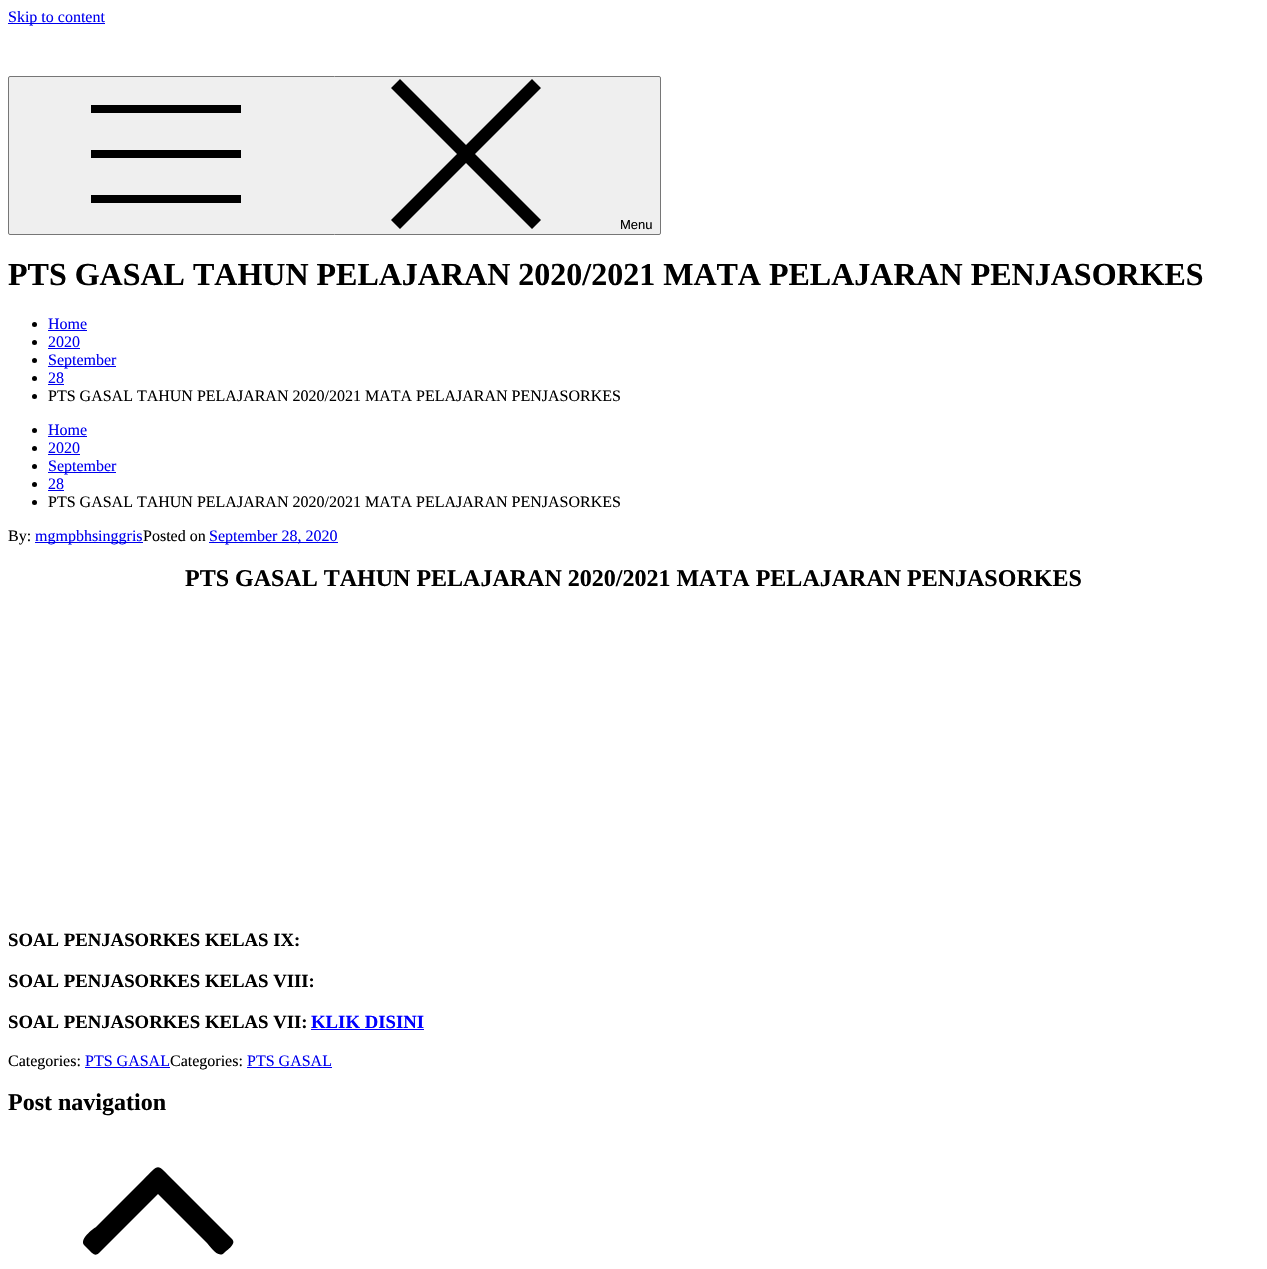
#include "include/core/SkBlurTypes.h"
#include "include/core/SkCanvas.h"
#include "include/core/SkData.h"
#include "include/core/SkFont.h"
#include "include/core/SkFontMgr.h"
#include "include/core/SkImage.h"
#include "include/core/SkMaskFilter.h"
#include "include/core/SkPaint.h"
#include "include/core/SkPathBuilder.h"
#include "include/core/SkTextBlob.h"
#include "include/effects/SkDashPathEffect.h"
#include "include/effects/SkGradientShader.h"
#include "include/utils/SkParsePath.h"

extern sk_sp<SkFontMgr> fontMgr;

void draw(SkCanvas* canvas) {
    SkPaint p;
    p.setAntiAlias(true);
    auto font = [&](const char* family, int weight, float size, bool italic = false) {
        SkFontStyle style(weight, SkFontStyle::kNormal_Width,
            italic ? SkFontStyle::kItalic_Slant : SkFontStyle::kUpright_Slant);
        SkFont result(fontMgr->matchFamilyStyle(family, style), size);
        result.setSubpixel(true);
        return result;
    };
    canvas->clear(0xFFFFFFFF);
    p.setColor(0xFF0000EE);
    canvas->drawRect(SkRect::MakeLTRB(8, 23, 105, 24), p);
    auto font1 = font("Liberation Serif", 400, 16);
    canvas->drawString("Skip to content", 8, 22, font1, p);
    p.setColor(0xFFEFEFEF);
    canvas->drawRoundRect(SkRect::MakeLTRB(8.5f, 76.5f, 660.5f, 234.5f), 1.5f, 1.5f, p);
    p.setStyle(SkPaint::kStroke_Style);
    p.setStrokeWidth(1);
    p.setColor(0xFF767676);
    canvas->drawRoundRect(SkRect::MakeLTRB(8.5f, 76.5f, 660.5f, 234.5f), 1.5f, 1.5f, p);
    p.setStyle(SkPaint::kFill_Style);
    p.setColor(0xFF000000);
    canvas->drawRect(SkRect::MakeLTRB(91, 105, 241, 113), p);
    canvas->drawPath(SkPathBuilder().moveTo(541, 88).lineTo(532, 79).lineTo(466, 145).lineTo(400, 79).lineTo(391, 88).lineTo(457, 154).lineTo(391, 220).lineTo(400, 229).lineTo(466, 163).lineTo(532, 229).lineTo(541, 220).lineTo(475, 154).close().detach(), p);
    canvas->drawRect(SkRect::MakeLTRB(91, 150, 241, 158), p);
    canvas->drawRect(SkRect::MakeLTRB(91, 195, 241, 203), p);
    auto font2 = font("Liberation Sans", 400, 13);
    canvas->drawString("Menu", 620, 229, font2, p);
    auto font3 = font("Liberation Serif", 700, 32);
    canvas->drawString("PTS GASAL TAHUN PELAJARAN 2020/2021 MATA PELAJARAN PENJASORKES", 8, 285, font3, p);
    canvas->drawCircle(34.5f, 324.5f, 2.5f, p);
    p.setColor(0xFF0000EE);
    canvas->drawString("Home", 48, 329, font1, p);
    canvas->drawRect(SkRect::MakeLTRB(48, 330, 87, 331), p);
    p.setColor(0xFF000000);
    canvas->drawCircle(34.5f, 342.5f, 2.5f, p);
    p.setColor(0xFF0000EE);
    canvas->drawString("2020", 48, 347, font1, p);
    canvas->drawRect(SkRect::MakeLTRB(48, 348, 80, 349), p);
    p.setColor(0xFF000000);
    canvas->drawCircle(34.5f, 360.5f, 2.5f, p);
    p.setColor(0xFF0000EE);
    canvas->drawRect(SkRect::MakeLTRB(48, 366, 116, 367), p);
    canvas->drawString("September", 48, 365, font1, p);
    p.setColor(0xFF000000);
    canvas->drawCircle(34.5f, 378.5f, 2.5f, p);
    p.setColor(0xFF0000EE);
    canvas->drawString("28", 48, 383, font1, p);
    canvas->drawRect(SkRect::MakeLTRB(48, 384, 64, 385), p);
    p.setColor(0xFF000000);
    canvas->drawCircle(34.5f, 396.5f, 2.5f, p);
    canvas->drawString("PTS GASAL TAHUN PELAJARAN 2020/2021 MATA PELAJARAN PENJASORKES", 48, 401, font1, p);
    canvas->drawCircle(34.5f, 430.5f, 2.5f, p);
    p.setColor(0xFF0000EE);
    canvas->drawString("Home", 48, 435, font1, p);
    canvas->drawRect(SkRect::MakeLTRB(48, 436, 87, 437), p);
    p.setColor(0xFF000000);
    canvas->drawCircle(34.5f, 448.5f, 2.5f, p);
    p.setColor(0xFF0000EE);
    canvas->drawString("2020", 48, 453, font1, p);
    canvas->drawRect(SkRect::MakeLTRB(48, 454, 80, 455), p);
    p.setColor(0xFF000000);
    canvas->drawCircle(34.5f, 466.5f, 2.5f, p);
    p.setColor(0xFF0000EE);
    canvas->drawRect(SkRect::MakeLTRB(48, 472, 116, 473), p);
    canvas->drawString("September", 48, 471, font1, p);
    p.setColor(0xFF000000);
    canvas->drawCircle(34.5f, 484.5f, 2.5f, p);
    p.setColor(0xFF0000EE);
    canvas->drawString("28", 48, 489, font1, p);
    canvas->drawRect(SkRect::MakeLTRB(48, 490, 64, 491), p);
    p.setColor(0xFF000000);
    canvas->drawCircle(34.5f, 502.5f, 2.5f, p);
    canvas->drawString("PTS GASAL TAHUN PELAJARAN 2020/2021 MATA PELAJARAN PENJASORKES", 48, 507, font1, p);
    canvas->drawString("By:", 8, 541, font1, p);
    p.setColor(0xFF0000EE);
    canvas->drawRect(SkRect::MakeLTRB(35, 542, 143, 543), p);
    canvas->drawString("mgmpbhsinggris", 35, 541, font1, p);
    p.setColor(0xFF000000);
    canvas->drawString("Posted on", 143, 541, font1, p);
    p.setColor(0xFF0000EE);
    canvas->drawRect(SkRect::MakeLTRB(209, 542, 338, 543), p);
    canvas->drawString("September 28, 2020", 209, 541, font1, p);
    auto font4 = font("Liberation Serif", 700, 24);
    p.setColor(0xFF000000);
    canvas->drawString("PTS GASAL TAHUN PELAJARAN 2020/2021 MATA PELAJARAN PENJASORKES", 185, 586, font4, p);
    auto font5 = font("Liberation Serif", 700, 18.75f);
    {
        const struct { const char* s; float x, y; } items[] = {
            {"SOAL PENJASORKES KELAS IX:", 8, 946},
            {"SOAL PENJASORKES KELAS VIII:", 8, 987},
            {"SOAL PENJASORKES KELAS VII:", 8, 1028},
        };
        for (auto [s, x, y] : items) {
            canvas->drawString(s, x, y, font5, p);
        }
    }
    p.setColor(0xFF0000FF);
    canvas->drawString("KLIK DISINI", 311, 1028, font5, p);
    canvas->drawRect(SkRect::MakeLTRB(311, 1029, 424, 1030), p);
    p.setColor(0xFF000000);
    canvas->drawString("Categories:", 8, 1066, font1, p);
    p.setColor(0xFF0000EE);
    canvas->drawString("PTS GASAL", 85, 1066, font1, p);
    p.setColor(0xFF000000);
    canvas->drawString("Categories:", 170, 1066, font1, p);
    p.setColor(0xFF0000EE);
    canvas->drawRect(SkRect::MakeLTRB(85, 1067, 170, 1068), p);
    canvas->drawString("PTS GASAL", 247, 1066, font1, p);
    canvas->drawRect(SkRect::MakeLTRB(247, 1067, 332, 1068), p);
    p.setColor(0xFF000000);
    canvas->drawString("Post navigation", 8, 1110, font4, p);
    canvas->drawPath(SkPathBuilder().moveTo(232, 1239).lineTo(173, 1180).cubicTo(156, 1163, 160, 1163, 143, 1180).lineTo(96, 1227).cubicTo(96, 1227, 79, 1238, 84, 1245).lineTo(90, 1251).cubicTo(92, 1253, 95, 1257, 99, 1253).lineTo(158, 1194).lineTo(207, 1243).cubicTo(209, 1245, 218, 1259, 224, 1253).cubicTo(227, 1250, 237, 1244, 232, 1239).close().detach(), p);
}
